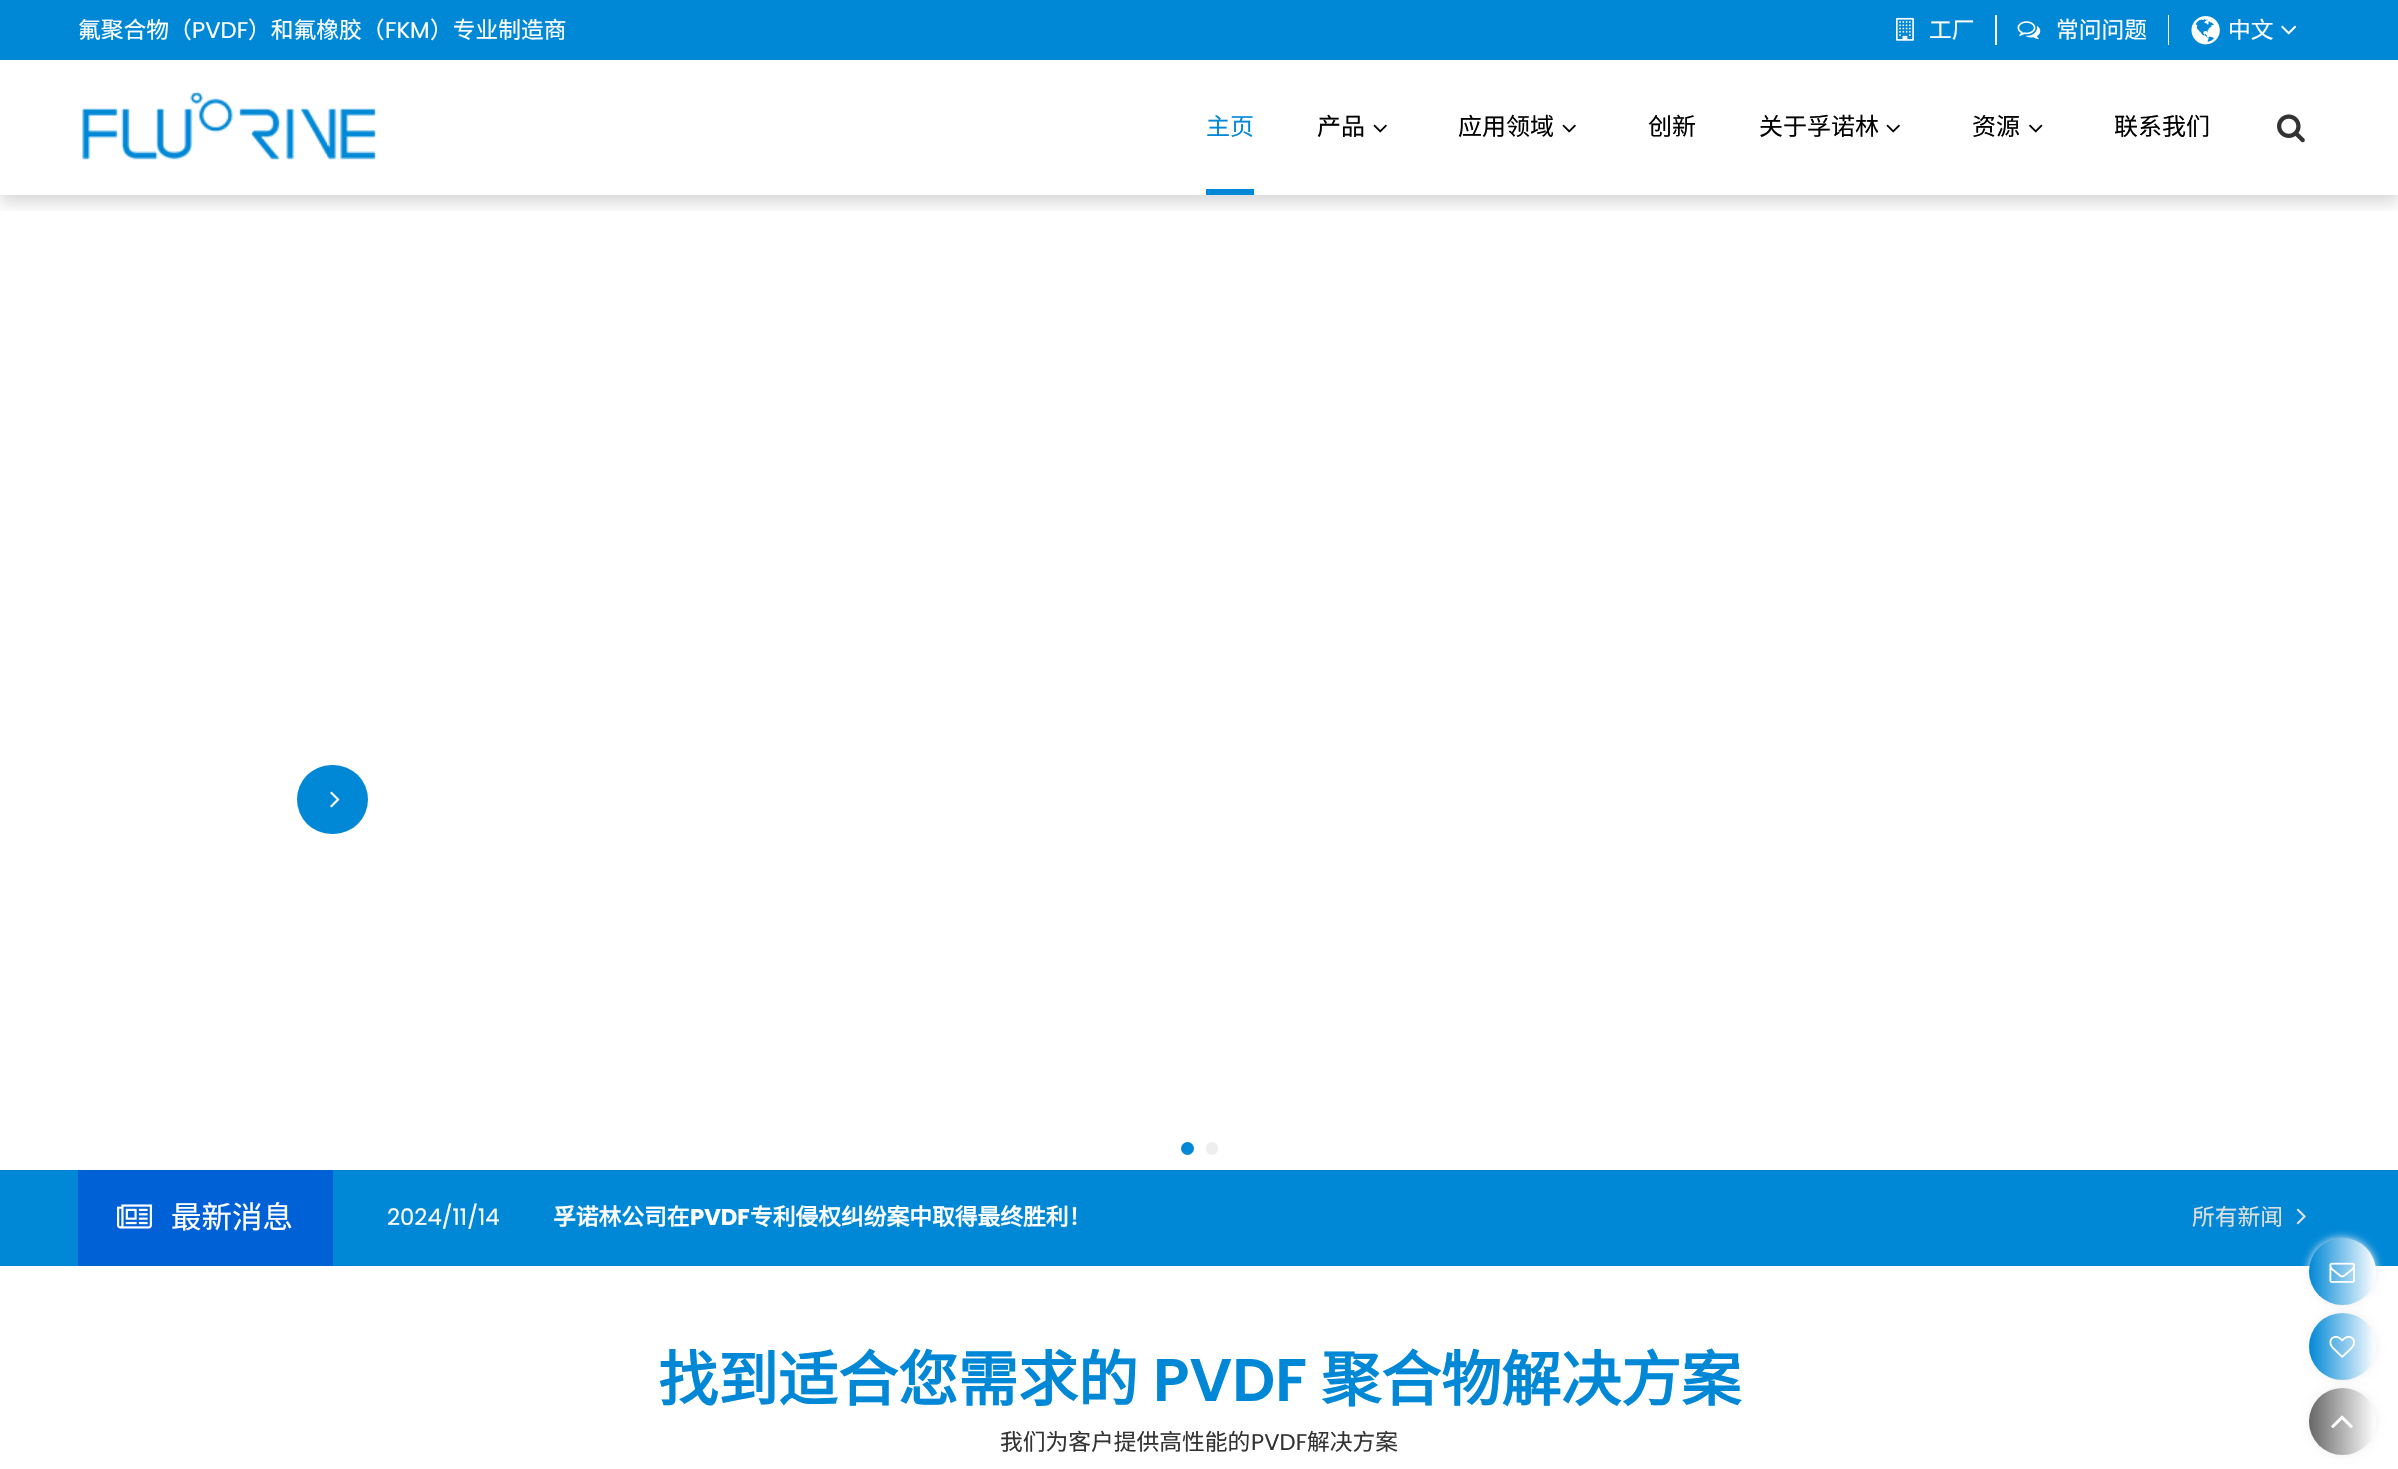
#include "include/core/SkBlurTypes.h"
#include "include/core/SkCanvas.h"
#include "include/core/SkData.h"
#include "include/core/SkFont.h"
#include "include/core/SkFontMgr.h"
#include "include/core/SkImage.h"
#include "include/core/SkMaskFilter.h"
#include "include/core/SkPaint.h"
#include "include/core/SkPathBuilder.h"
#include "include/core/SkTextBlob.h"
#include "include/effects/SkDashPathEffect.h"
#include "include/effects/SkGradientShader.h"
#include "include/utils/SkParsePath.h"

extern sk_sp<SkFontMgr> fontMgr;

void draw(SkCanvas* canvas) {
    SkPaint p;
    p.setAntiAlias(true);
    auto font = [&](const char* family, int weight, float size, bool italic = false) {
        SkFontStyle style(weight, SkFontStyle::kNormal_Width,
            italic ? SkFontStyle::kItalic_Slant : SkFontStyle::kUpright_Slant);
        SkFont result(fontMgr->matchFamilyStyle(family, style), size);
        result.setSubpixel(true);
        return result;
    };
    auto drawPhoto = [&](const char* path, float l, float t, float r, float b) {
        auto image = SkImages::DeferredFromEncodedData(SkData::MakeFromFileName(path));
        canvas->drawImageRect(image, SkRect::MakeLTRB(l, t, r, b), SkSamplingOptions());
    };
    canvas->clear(0xFFFFFFFF);
    p.setColor(0xFF0088D6);
    canvas->drawRect(SkRect::MakeLTRB(0, 0, 2398, 60), p);
    auto font1 = font("Noto Sans CJK SC", 400, 22.75f);
    p.setColor(0xFFFFFFFF);
    canvas->drawString("氟聚合物（", 78, 38, font1, p);
    auto font2 = font("Poppins", 400, 22.75f);
    canvas->drawString("PVDF", 192, 38, font2, p);
    canvas->drawString("）和氟橡胶（", 248, 38, font1, p);
    canvas->drawString("FKM", 385, 38, font2, p);
    canvas->drawString("）专业制造商", 430, 38, font1, p);
    canvas->drawRect(SkRect::MakeLTRB(1995, 15, 1997, 45), p);
    drawPhoto("media/1.png", 1896, 17, 1914, 41);
    canvas->drawString("工厂", 1929, 38, font1, p);
    canvas->drawRect(SkRect::MakeLTRB(2168, 15, 2169, 45), p);
    drawPhoto("media/2.png", 2017, 21, 2041, 40);
    canvas->drawString("常问问题", 2056, 38, font1, p);
    drawPhoto("media/3.png", 2191, 16, 2220, 45);
    canvas->drawString("中文", 2228, 38, font1, p);
    drawPhoto("media/4.png", 2281, 25, 2297, 35);
    canvas->save();
    canvas->clipRect(SkRect::MakeLTRB(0, 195, 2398, 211));
    p.setColor(0x26000000);
    p.setMaskFilter(SkMaskFilter::MakeBlur(kNormal_SkBlurStyle, 7.5f));
    canvas->drawRect(SkRect::MakeLTRB(0, 68, 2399, 203), p);
    p.setMaskFilter(nullptr);
    canvas->restore();
    drawPhoto("media/5.png", 82, 92, 376, 160);
    auto font3 = font("Noto Sans CJK SC", 400, 24);
    p.setColor(0xFF0088D6);
    canvas->drawString("主页", 1206, 135, font3, p);
    canvas->drawRect(SkRect::MakeLTRB(1206, 189, 1254, 195), p);
    p.setColor(0xFF000000);
    canvas->drawString("产品", 1317, 135, font3, p);
    drawPhoto("media/6.png", 1373, 124, 1387, 133);
    canvas->drawString("应用领域", 1458, 135, font3, p);
    drawPhoto("media/6.png", 1562, 124, 1576, 133);
    canvas->drawString("创新", 1648, 135, font3, p);
    canvas->drawString("关于孚诺林", 1759, 135, font3, p);
    drawPhoto("media/6.png", 1886, 124, 1900, 133);
    canvas->drawString("资源", 1972, 135, font3, p);
    drawPhoto("media/7.png", 2029, 124, 2043, 133);
    canvas->drawString("联系我们", 2114, 135, font3, p);
    drawPhoto("media/8.png", 2277, 114, 2305, 143);
    p.setColor(0xFF0088D6);
    canvas->drawRoundRect(SkRect::MakeLTRB(297, 765, 368, 834), 34.5f, 34.5f, p);
    drawPhoto("media/9.png", 330, 791, 340, 808);
    canvas->drawCircle(1187.5f, 1148.5f, 6.5f, p);
    p.setColor(0xFFEEEEEE);
    canvas->drawRoundRect(SkRect::MakeLTRB(1206, 1142, 1218, 1155), 6, 6, p);
    p.setColor(0xFF0088D6);
    canvas->drawRect(SkRect::MakeLTRB(0, 1170, 2398, 1266), p);
    p.setColor(0xFF0060D6);
    canvas->drawRect(SkRect::MakeLTRB(78, 1170, 333, 1266), p);
    drawPhoto("media/10.png", 117, 1204, 152, 1229);
    auto font4 = font("Noto Sans CJK SC", 400, 30.5f);
    p.setColor(0xFFFFFFFF);
    canvas->drawString("最新消息", 171, 1228, font4, p);
    canvas->drawString("2024/11/14", 387, 1225, font2, p);
    auto font5 = font("Noto Sans CJK SC", 700, 22.75f);
    canvas->drawString("孚诺林公司在", 553, 1225, font5, p);
    auto font6 = font("Poppins", 700, 22.75f);
    canvas->drawString("PVDF", 690, 1225, font6, p);
    canvas->drawString("专利侵权纠纷案中取得最终胜利！", 750, 1225, font5, p);
    p.setColor(0xFFDFDFDF);
    canvas->drawString("所有新闻", 2192, 1225, font1, p);
    drawPhoto("media/11.png", 2296, 1208, 2306, 1225);
    auto font7 = font("Noto Sans CJK SC", 700, 60);
    p.setColor(0xFF0088D6);
    canvas->drawString("找到适合您需求的", 658, 1401, font7, p);
    auto font8 = font("Poppins", 600, 60);
    canvas->drawString("PVDF", 1153, 1401, font8, p);
    canvas->drawString("聚合物解决方案", 1321, 1401, font7, p);
    p.setColor(0xFF333333);
    canvas->drawString("我们为客户提供高性能的", 1000, 1450, font1, p);
    canvas->drawString("PVDF", 1251, 1450, font2, p);
    canvas->drawString("解决方案", 1307, 1450, font1, p);
    p.setColor(0xFFEEEEEE);
    p.setMaskFilter(SkMaskFilter::MakeBlur(kNormal_SkBlurStyle, 4));
    canvas->drawRoundRect(SkRect::MakeLTRB(2309, 1238, 2376, 1305), 33.5f, 33.5f, p);
    p.setMaskFilter(nullptr);
    {
        const SkColor colors[] = {0xFF0088D6, 0xFFFFFFFF};
        const float stops[] = {0, 1};
        const SkPoint ends[] = {{2309, 1271}, {2376, 1271}};
        p.setShader(SkGradientShader::MakeLinear(ends, colors, stops, 2, SkTileMode::kClamp));
        p.setAlpha(255);
    }
    canvas->drawCircle(2342.5f, 1271.5f, 33.5f, p);
    drawPhoto("media/12.png", 2329, 1262, 2355, 1283);
    p.setShader(nullptr);
    p.setColor(0xFFEEEEEE);
    p.setMaskFilter(SkMaskFilter::MakeBlur(kNormal_SkBlurStyle, 4));
    canvas->drawRoundRect(SkRect::MakeLTRB(2309, 1313, 2376, 1380), 33.5f, 33.5f, p);
    p.setMaskFilter(nullptr);
    {
        const SkColor colors[] = {0xFF0088D6, 0xFFFFFFFF};
        const float stops[] = {0, 1};
        const SkPoint ends[] = {{2309, 1346}, {2376, 1346}};
        p.setShader(SkGradientShader::MakeLinear(ends, colors, stops, 2, SkTileMode::kClamp));
        p.setAlpha(255);
    }
    canvas->drawCircle(2342.5f, 1346.5f, 33.5f, p);
    drawPhoto("media/13.png", 2329, 1336, 2355, 1358);
    p.setShader(nullptr);
    p.setColor(0xFFEEEEEE);
    p.setMaskFilter(SkMaskFilter::MakeBlur(kNormal_SkBlurStyle, 4));
    canvas->drawRoundRect(SkRect::MakeLTRB(2309, 1388, 2376, 1455), 33.5f, 33.5f, p);
    p.setMaskFilter(nullptr);
    {
        const SkColor colors[] = {0xFF666666, 0xFFFFFFFF};
        const float stops[] = {0, 1};
        const SkPoint ends[] = {{2309, 1421}, {2376, 1421}};
        p.setShader(SkGradientShader::MakeLinear(ends, colors, stops, 2, SkTileMode::kClamp));
        p.setAlpha(255);
    }
    canvas->drawCircle(2342.5f, 1421.5f, 33.5f, p);
    drawPhoto("media/14.png", 2331, 1415, 2353, 1428);
}
